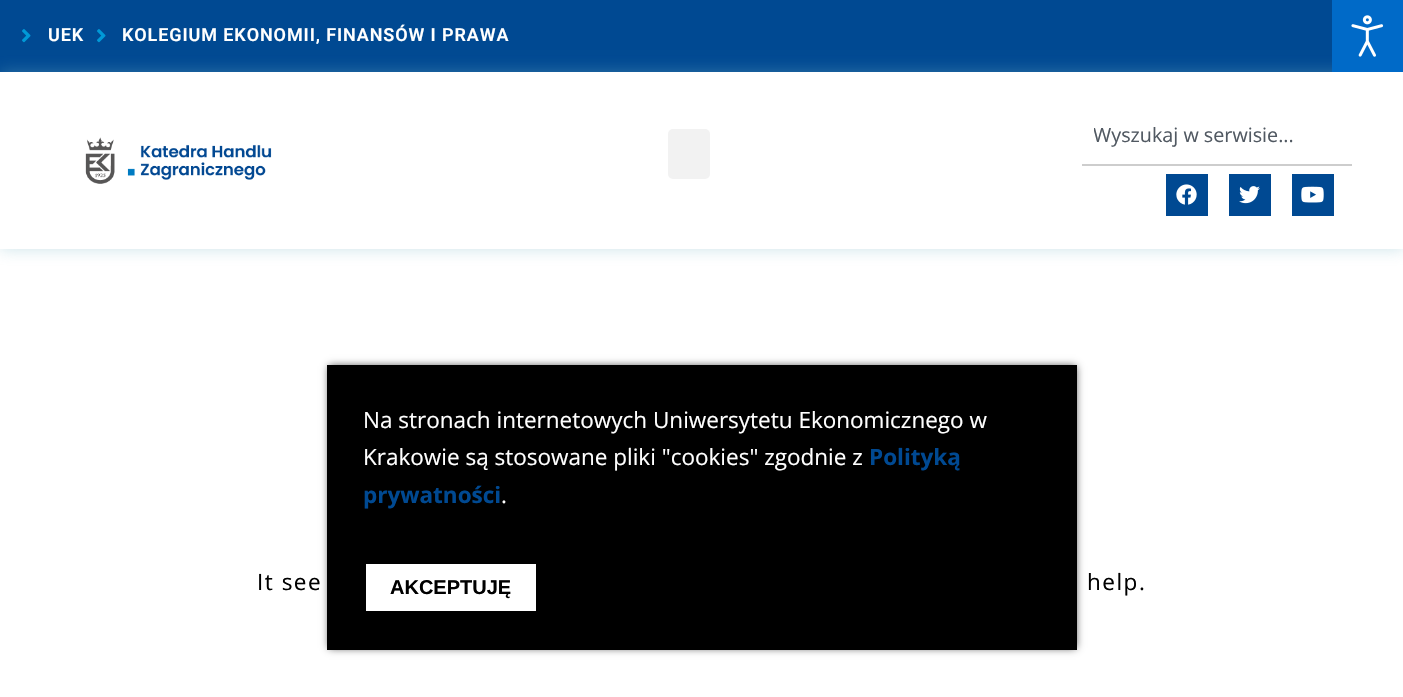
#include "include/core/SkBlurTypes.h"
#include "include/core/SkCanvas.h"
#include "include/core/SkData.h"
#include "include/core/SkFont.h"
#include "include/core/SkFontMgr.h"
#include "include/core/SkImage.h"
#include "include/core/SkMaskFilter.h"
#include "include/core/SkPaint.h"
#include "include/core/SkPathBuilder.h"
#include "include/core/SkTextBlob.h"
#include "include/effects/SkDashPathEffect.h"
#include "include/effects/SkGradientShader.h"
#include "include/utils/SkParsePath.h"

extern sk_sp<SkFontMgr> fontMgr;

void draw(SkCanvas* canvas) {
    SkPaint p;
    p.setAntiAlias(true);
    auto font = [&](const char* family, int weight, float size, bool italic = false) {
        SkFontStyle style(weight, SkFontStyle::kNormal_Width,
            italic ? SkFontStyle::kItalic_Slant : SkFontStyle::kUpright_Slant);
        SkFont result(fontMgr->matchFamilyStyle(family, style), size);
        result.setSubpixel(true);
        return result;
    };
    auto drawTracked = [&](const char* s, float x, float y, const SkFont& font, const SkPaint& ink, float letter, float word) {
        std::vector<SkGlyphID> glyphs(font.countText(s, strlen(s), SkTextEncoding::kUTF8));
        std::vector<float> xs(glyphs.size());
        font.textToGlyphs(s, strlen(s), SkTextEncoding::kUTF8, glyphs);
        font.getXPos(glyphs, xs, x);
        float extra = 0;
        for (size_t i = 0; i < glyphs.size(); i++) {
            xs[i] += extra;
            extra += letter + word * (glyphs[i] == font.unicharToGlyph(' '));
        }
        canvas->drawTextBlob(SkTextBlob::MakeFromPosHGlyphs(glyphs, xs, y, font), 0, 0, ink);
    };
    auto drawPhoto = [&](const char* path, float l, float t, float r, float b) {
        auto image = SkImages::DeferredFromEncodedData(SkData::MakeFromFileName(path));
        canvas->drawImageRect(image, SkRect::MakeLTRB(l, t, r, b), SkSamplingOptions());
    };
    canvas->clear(0xFFFFFFFF);
    p.setColor(0xFF004992);
    canvas->drawRect(SkRect::MakeLTRB(0, 0, 1332, 72), p);
    drawPhoto("media/1.png", 22, 29, 31, 43);
    auto font1 = font("Roboto", 600, 18);
    p.setColor(0xFFFFFFFF);
    drawTracked("UEK", 48, 41, font1, p, 0.9f, 0);
    drawPhoto("media/1.png", 97, 29, 106, 43);
    drawTracked("KOLEGIUM EKONOMII, FINANSÓW I PRAWA", 122, 41, font1, p, 0.9f, 0);
    canvas->save();
    canvas->clipPath(SkPathBuilder(SkPathFillType::kEvenOdd).moveTo(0, 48).lineTo(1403, 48).lineTo(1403, 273).lineTo(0, 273).close().moveTo(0, 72).lineTo(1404, 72).lineTo(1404, 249).lineTo(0, 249).close().detach(), true);
    p.setColor(0x6175B6C5);
    p.setMaskFilter(SkMaskFilter::MakeBlur(kNormal_SkBlurStyle, 7.5f));
    canvas->drawRect(SkRect::MakeLTRB(0, 72, 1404, 249), p);
    p.setMaskFilter(nullptr);
    canvas->restore();
    drawPhoto("media/2.png", 85, 137, 272, 184);
    p.setColor(0xFFF2F2F2);
    canvas->drawRoundRect(SkRect::MakeLTRB(668, 129, 710, 179), 5, 5, p);
    p.setColor(0xFFCDCDCD);
    canvas->drawRect(SkRect::MakeLTRB(1082, 164, 1352, 166), p);
    canvas->save();
    canvas->clipRect(SkRect::MakeLTRB(1094, 122, 1322, 149));
    auto font2 = font("Open Sans", 400, 19.75f);
    p.setColor(0xFF515962);
    canvas->drawString("Wyszukaj w serwisie...", 1093, 142, font2, p);
    canvas->restore();
    p.setColor(0xFF004992);
    canvas->drawRect(SkRect::MakeLTRB(1166, 174, 1208, 216), p);
    drawPhoto("media/3.png", 1176, 184, 1197, 205);
    canvas->drawRect(SkRect::MakeLTRB(1229, 174, 1271, 216), p);
    drawPhoto("media/4.png", 1239, 186, 1260, 204);
    canvas->drawRect(SkRect::MakeLTRB(1292, 174, 1334, 216), p);
    drawPhoto("media/5.png", 1301, 186, 1324, 203);
    p.setColor(0xFF006AC8);
    canvas->drawRect(SkRect::MakeLTRB(1332, 0, 1403, 72), p);
    drawPhoto("media/6.png", 1351, 15, 1384, 57);
    p.setColor(0xFF444444);
    p.setMaskFilter(SkMaskFilter::MakeBlur(kNormal_SkBlurStyle, 4));
    canvas->drawRect(SkRect::MakeLTRB(329, 366, 1076, 648), p);
    p.setMaskFilter(nullptr);
    p.setColor(0xFF000000);
    canvas->drawRect(SkRect::MakeLTRB(327, 365, 1077, 650), p);
    auto font3 = font("Open Sans", 400, 22.5f);
    p.setColor(0xFFFFFFFF);
    canvas->drawString("Na stronach internetowych Uniwersytetu Ekonomicznego w", 363, 428, font3, p);
    canvas->drawString("Krakowie są stosowane pliki \"cookies\" zgodnie z", 363, 465, font3, p);
    auto font4 = font("Open Sans", 700, 22.5f);
    p.setColor(0xFF004992);
    canvas->drawString("Polityką", 869, 465, font4, p);
    canvas->drawString("prywatności", 363, 503, font4, p);
    p.setColor(0xFFFFFFFF);
    canvas->drawString(".", 501, 503, font3, p);
    canvas->drawRect(SkRect::MakeLTRB(366, 564, 536, 611), p);
    auto font5 = font("Liberation Sans", 700, 20);
    p.setColor(0xFF000000);
    canvas->drawString("AKCEPTUJĘ", 390, 594, font5, p);
    drawTracked("It see", 257, 590, font3, p, 1.5f, 0);
    drawTracked("help.", 1087, 590, font3, p, 1.5f, 0);
}
